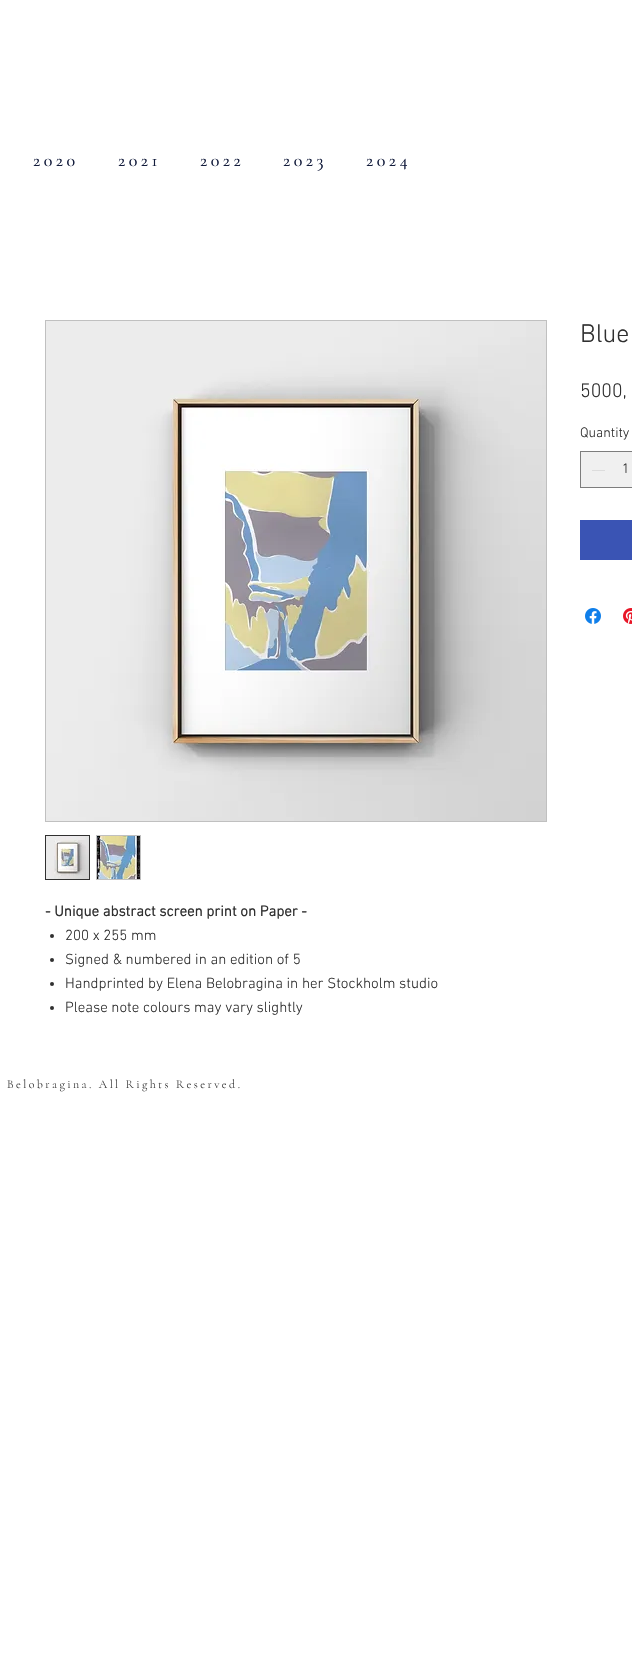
#include "include/core/SkBlurTypes.h"
#include "include/core/SkCanvas.h"
#include "include/core/SkData.h"
#include "include/core/SkFont.h"
#include "include/core/SkFontMgr.h"
#include "include/core/SkImage.h"
#include "include/core/SkMaskFilter.h"
#include "include/core/SkPaint.h"
#include "include/core/SkPathBuilder.h"
#include "include/core/SkTextBlob.h"
#include "include/effects/SkDashPathEffect.h"
#include "include/effects/SkGradientShader.h"
#include "include/utils/SkParsePath.h"

extern sk_sp<SkFontMgr> fontMgr;

void draw(SkCanvas* canvas) {
    SkPaint p;
    p.setAntiAlias(true);
    auto font = [&](const char* family, int weight, float size, bool italic = false) {
        SkFontStyle style(weight, SkFontStyle::kNormal_Width,
            italic ? SkFontStyle::kItalic_Slant : SkFontStyle::kUpright_Slant);
        SkFont result(fontMgr->matchFamilyStyle(family, style), size);
        result.setSubpixel(true);
        return result;
    };
    auto drawTracked = [&](const char* s, float x, float y, const SkFont& font, const SkPaint& ink, float letter, float word) {
        std::vector<SkGlyphID> glyphs(font.countText(s, strlen(s), SkTextEncoding::kUTF8));
        std::vector<float> xs(glyphs.size());
        font.textToGlyphs(s, strlen(s), SkTextEncoding::kUTF8, glyphs);
        font.getXPos(glyphs, xs, x);
        float extra = 0;
        for (size_t i = 0; i < glyphs.size(); i++) {
            xs[i] += extra;
            extra += letter + word * (glyphs[i] == font.unicharToGlyph(' '));
        }
        canvas->drawTextBlob(SkTextBlob::MakeFromPosHGlyphs(glyphs, xs, y, font), 0, 0, ink);
    };
    auto drawPhoto = [&](const char* path, float l, float t, float r, float b) {
        auto image = SkImages::DeferredFromEncodedData(SkData::MakeFromFileName(path));
        canvas->drawImageRect(image, SkRect::MakeLTRB(l, t, r, b), SkSamplingOptions());
    };
    canvas->clear(0xFFFFFFFF);
    auto font1 = font("Cormorant Garamond", 500, 18);
    p.setColor(0xFF131C3C);
    {
        const struct { const char* s; float x, y; } items[] = {
            {"2020", 33, 166},
            {"2021", 118, 166},
            {"2022", 200, 166},
            {"2023", 283, 166},
            {"2024", 366, 166},
        };
        for (auto [s, x, y] : items) {
            drawTracked(s, x, y, font1, p, 3.5f, 0);
        }
    }
    auto font2 = font("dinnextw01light", 300, 26);
    p.setColor(0xFF303030);
    canvas->drawString("Blue", 580, 342, font2, p);
    auto font3 = font("dinnextw01light", 300, 20);
    canvas->drawString("5000,", 580, 397, font3, p);
    auto font4 = font("dinnextw01light", 300, 14);
    canvas->drawString("Quantity", 580, 437, font4, p);
    p.setColor(0xFFF0F0F0);
    canvas->drawRect(SkRect::MakeLTRB(580.5f, 451.5f, 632.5f, 487.5f), p);
    p.setStyle(SkPaint::kStroke_Style);
    p.setStrokeWidth(1);
    p.setColor(0xFF7D7D7D);
    canvas->drawRect(SkRect::MakeLTRB(580.5f, 451.5f, 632.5f, 487.5f), p);
    p.setStyle(SkPaint::kFill_Style);
    p.setColor(0xFFDCDCDC);
    canvas->drawRect(SkRect::MakeLTRB(592, 470, 605, 471), p);
    p.setColor(0xFF303030);
    canvas->drawString("1", 622, 473, font4, p);
    p.setColor(0xFF3A54B4);
    canvas->drawRect(SkRect::MakeLTRB(580, 520, 632, 560), p);
    drawPhoto("media/1.png", 585, 608, 601, 624);
    drawPhoto("media/2.png", 623, 608, 632, 624);
    p.setStyle(SkPaint::kStroke_Style);
    p.setColor(0xFFC0C0C0);
    canvas->drawRect(SkRect::MakeLTRB(45.5f, 320.5f, 546.5f, 821.5f), p);
    drawPhoto("media/3.png", 46, 321, 546, 821);
    p.setColor(0xFF303030);
    canvas->drawRect(SkRect::MakeLTRB(45.5f, 835.5f, 89.5f, 879.5f), p);
    drawPhoto("media/4.png", 46, 836, 89, 879);
    p.setStyle(SkPaint::kFill_Style);
    p.setColor(0xFFC0C0C0);
    canvas->drawRect(SkRect::MakeLTRB(96, 835, 141, 880), p);
    drawPhoto("media/5.png", 97, 836, 140, 879);
    auto font5 = font("dinnextw01light", 700, 15);
    p.setColor(0xFF303030);
    canvas->drawString("- Unique abstract screen print on Paper -", 45, 916, font5, p);
    canvas->drawCircle(52, 936, 2, p);
    auto font6 = font("dinnextw01light", 300, 15);
    canvas->drawString("200 x 255 mm", 65, 940, font6, p);
    canvas->drawCircle(52, 960, 2, p);
    canvas->drawString("Signed & numbered in an edition of 5", 65, 964, font6, p);
    canvas->drawCircle(52, 984, 2, p);
    canvas->drawString("Handprinted by Elena Belobragina in her Stockholm studio", 65, 988, font6, p);
    canvas->drawCircle(52, 1008, 2, p);
    canvas->drawString("Please note colours may vary slightly", 65, 1012, font6, p);
    auto font7 = font("Cormorant Garamond", 300, 12);
    drawTracked("Belobragina. All Rights Reserved.", 7, 1088, font7, p, 2.4f, 0);
}
